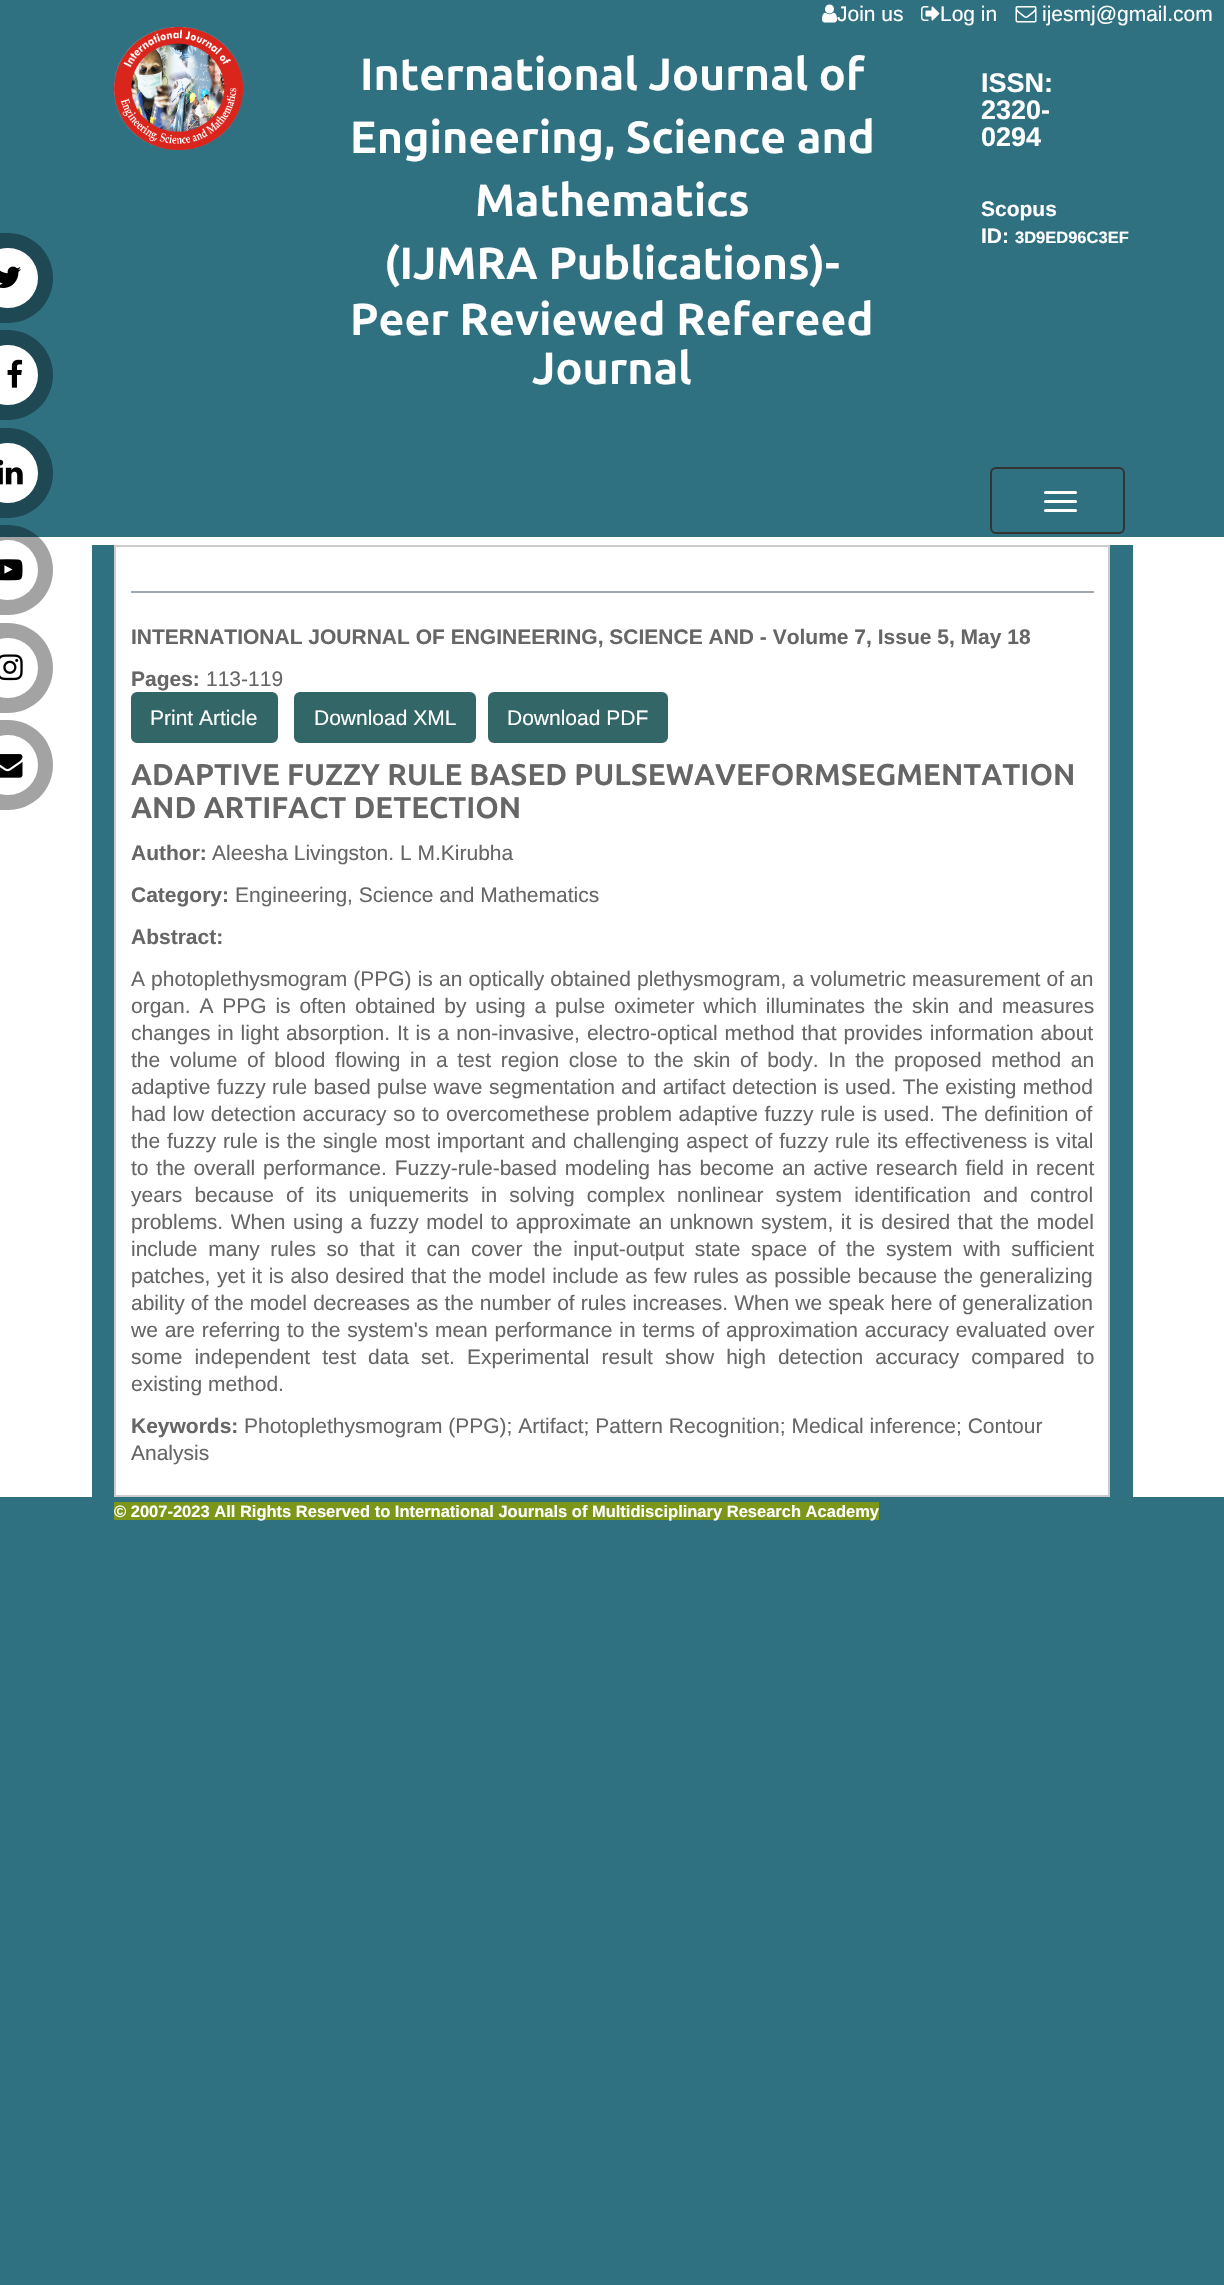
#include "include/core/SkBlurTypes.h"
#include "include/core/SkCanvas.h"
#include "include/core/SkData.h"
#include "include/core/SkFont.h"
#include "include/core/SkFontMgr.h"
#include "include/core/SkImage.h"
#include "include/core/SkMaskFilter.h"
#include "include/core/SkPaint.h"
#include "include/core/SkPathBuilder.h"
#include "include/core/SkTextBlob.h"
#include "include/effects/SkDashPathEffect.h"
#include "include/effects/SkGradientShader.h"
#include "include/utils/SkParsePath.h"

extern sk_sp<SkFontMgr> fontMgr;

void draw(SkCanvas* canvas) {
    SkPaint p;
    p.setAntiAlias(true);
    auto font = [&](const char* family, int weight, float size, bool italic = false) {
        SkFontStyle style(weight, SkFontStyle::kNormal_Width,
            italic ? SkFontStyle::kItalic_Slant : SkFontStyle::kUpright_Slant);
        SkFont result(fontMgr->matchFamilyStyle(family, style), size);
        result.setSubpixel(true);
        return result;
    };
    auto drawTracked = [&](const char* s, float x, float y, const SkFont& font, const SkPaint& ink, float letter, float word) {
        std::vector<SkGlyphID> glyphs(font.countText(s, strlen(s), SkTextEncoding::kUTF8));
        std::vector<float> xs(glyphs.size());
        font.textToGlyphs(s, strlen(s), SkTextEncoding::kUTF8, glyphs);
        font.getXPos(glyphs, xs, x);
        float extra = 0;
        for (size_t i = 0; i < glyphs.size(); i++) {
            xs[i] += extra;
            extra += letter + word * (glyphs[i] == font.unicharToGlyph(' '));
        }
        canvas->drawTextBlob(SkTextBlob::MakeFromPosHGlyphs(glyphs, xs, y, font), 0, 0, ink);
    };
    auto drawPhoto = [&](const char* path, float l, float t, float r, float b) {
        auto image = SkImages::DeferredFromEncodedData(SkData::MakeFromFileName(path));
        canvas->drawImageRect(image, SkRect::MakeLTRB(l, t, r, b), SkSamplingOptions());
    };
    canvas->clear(0xFF2F7181);
    drawPhoto("media/1.png", 822, 4, 837, 23);
    auto font1 = font("Liberation Sans", 400, 21);
    p.setColor(0xFFFFFFFF);
    canvas->drawString("Join us", 837, 21, font1, p);
    drawPhoto("media/2.png", 921, 6, 940, 21);
    canvas->drawString("Log in", 940, 21, font1, p);
    drawPhoto("media/3.png", 1015, 6, 1037, 23);
    canvas->drawString("ijesmj@gmail.com", 1042, 21, font1, p);
    drawPhoto("media/4.png", 114, 27, 243, 150);
    auto font2 = font("Ubuntu", 700, 45);
    {
        const struct { const char* s; float x, y; } items[] = {
            {"International Journal of", 360, 90},
            {"Engineering, Science and", 350, 153},
            {"Mathematics", 475, 216},
            {"(IJMRA Publications)-", 384, 279},
            {"Peer Reviewed Refereed", 350, 335},
            {"Journal", 532, 384},
        };
        for (auto [s, x, y] : items) {
            canvas->drawString(s, x, y, font2, p);
        }
    }
    auto font3 = font("Liberation Sans", 700, 27);
    {
        const struct { const char* s; float x, y; } items[] = {
            {"ISSN:", 981, 92},
            {"2320-", 981, 119},
            {"0294", 981, 146},
        };
        for (auto [s, x, y] : items) {
            canvas->drawString(s, x, y, font3, p);
        }
    }
    auto font4 = font("Liberation Sans", 700, 21);
    canvas->drawString("Scopus", 981, 216, font4, p);
    canvas->drawString("ID:", 981, 243, font4, p);
    auto font5 = font("Liberation Sans", 700, 16.5f);
    canvas->drawString("3D9ED96C3EF", 1015, 243, font5, p);
    p.setStyle(SkPaint::kStroke_Style);
    p.setStrokeWidth(2);
    p.setColor(0xFF333333);
    canvas->drawRoundRect(SkRect::MakeLTRB(991, 468, 1124, 533), 5, 5, p);
    p.setStyle(SkPaint::kFill_Style);
    p.setColor(0xFFFFFFFF);
    canvas->drawRoundRect(SkRect::MakeLTRB(1044, 491, 1077, 494), 1.5f, 1.5f, p);
    canvas->drawRoundRect(SkRect::MakeLTRB(1044, 500, 1077, 503), 1.5f, 1.5f, p);
    canvas->drawRoundRect(SkRect::MakeLTRB(1044, 509, 1077, 512), 1.5f, 1.5f, p);
    p.setColor(0xFF1E4853);
    canvas->drawPath(SkPathBuilder().moveTo(-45, 233).lineTo(8, 233).cubicTo(33, 233, 53, 253, 53, 278).cubicTo(53, 303, 33, 323, 8, 323).lineTo(-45, 323).close().detach(), p);
    p.setColor(0xFFFFFFFF);
    canvas->drawCircle(8, 278, 30, p);
    drawPhoto("media/5.png", 0, 266, 21, 288);
    p.setColor(0xFF1E4853);
    canvas->drawPath(SkPathBuilder().moveTo(-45, 330).lineTo(8, 330).cubicTo(33, 330, 53, 350, 53, 375).cubicTo(53, 400, 33, 420, 8, 420).lineTo(-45, 420).close().detach(), p);
    p.setColor(0xFFFFFFFF);
    canvas->drawCircle(8, 375, 30, p);
    drawPhoto("media/6.png", 7, 359, 23, 388);
    p.setColor(0xFF1E4853);
    canvas->drawPath(SkPathBuilder().moveTo(-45, 428).lineTo(8, 428).cubicTo(33, 428, 53, 448, 53, 473).cubicTo(53, 498, 33, 518, 8, 518).lineTo(-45, 518).close().detach(), p);
    p.setColor(0xFFFFFFFF);
    canvas->drawCircle(8, 473, 30, p);
    drawPhoto("media/7.png", 0, 459, 23, 485);
    canvas->drawRect(SkRect::MakeLTRB(0, 537, 1224, 1497), p);
    p.setColor(0x5C000000);
    canvas->drawPath(SkPathBuilder().moveTo(-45, 525).lineTo(8, 525).cubicTo(33, 525, 53, 545, 53, 570).cubicTo(53, 595, 33, 615, 8, 615).lineTo(-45, 615).close().detach(), p);
    p.setColor(0xFFFFFFFF);
    canvas->drawCircle(8, 570, 30, p);
    drawPhoto("media/8.png", 0, 559, 23, 581);
    p.setColor(0xFFA3A3A3);
    canvas->drawPath(SkPathBuilder().moveTo(-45, 623).lineTo(8, 623).cubicTo(33, 623, 53, 643, 53, 668).cubicTo(53, 693, 33, 713, 8, 713).lineTo(-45, 713).close().detach(), p);
    p.setColor(0xFFFFFFFF);
    canvas->drawCircle(8, 668, 30, p);
    drawPhoto("media/9.png", 0, 654, 23, 681);
    p.setColor(0xFFA3A3A3);
    canvas->drawPath(SkPathBuilder().moveTo(-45, 720).lineTo(8, 720).cubicTo(33, 720, 53, 740, 53, 765).cubicTo(53, 790, 33, 810, 8, 810).lineTo(-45, 810).close().detach(), p);
    p.setColor(0xFFFFFFFF);
    canvas->drawCircle(8, 765, 30, p);
    drawPhoto("media/10.png", 0, 754, 23, 778);
    p.setColor(0xFF2F7181);
    canvas->drawRect(SkRect::MakeLTRB(92, 545, 1133, 1497), p);
    p.setColor(0xFFFFFFFF);
    canvas->drawRect(SkRect::MakeLTRB(115, 546, 1109, 1496), p);
    p.setStyle(SkPaint::kStroke_Style);
    p.setColor(0xFFCCCCCC);
    canvas->drawRect(SkRect::MakeLTRB(115, 546, 1109, 1496), p);
    p.setStyle(SkPaint::kFill_Style);
    p.setColor(0xFF9CA9B2);
    canvas->drawRect(SkRect::MakeLTRB(131, 591, 1094, 593), p);
    p.setColor(0xFF666666);
    canvas->drawString("INTERNATIONAL JOURNAL OF ENGINEERING, SCIENCE AND - Volume 7, Issue 5, May 18", 131, 644, font4, p);
    canvas->drawString("Pages:", 131, 686, font4, p);
    canvas->drawString("113-119", 206, 686, font1, p);
    p.setColor(0xFF336666);
    canvas->drawRoundRect(SkRect::MakeLTRB(132, 693, 277, 742), 5, 5, p);
    p.setStyle(SkPaint::kStroke_Style);
    canvas->drawRoundRect(SkRect::MakeLTRB(132, 693, 277, 742), 5, 5, p);
    p.setStyle(SkPaint::kFill_Style);
    p.setColor(0xFFFFFFFF);
    canvas->drawString("Print Article", 150, 725, font1, p);
    p.setColor(0xFF336666);
    canvas->drawRoundRect(SkRect::MakeLTRB(295, 693, 475, 742), 5, 5, p);
    p.setStyle(SkPaint::kStroke_Style);
    canvas->drawRoundRect(SkRect::MakeLTRB(295, 693, 475, 742), 5, 5, p);
    p.setStyle(SkPaint::kFill_Style);
    p.setColor(0xFFFFFFFF);
    canvas->drawString("Download XML", 314, 725, font1, p);
    p.setColor(0xFF336666);
    canvas->drawRoundRect(SkRect::MakeLTRB(489, 693, 667, 742), 5, 5, p);
    p.setStyle(SkPaint::kStroke_Style);
    canvas->drawRoundRect(SkRect::MakeLTRB(489, 693, 667, 742), 5, 5, p);
    p.setStyle(SkPaint::kFill_Style);
    p.setColor(0xFFFFFFFF);
    canvas->drawString("Download PDF", 507, 725, font1, p);
    auto font6 = font("Ubuntu", 700, 30);
    p.setColor(0xFF666666);
    canvas->drawString("ADAPTIVE FUZZY RULE BASED PULSEWAVEFORMSEGMENTATION", 131, 785, font6, p);
    canvas->drawString("AND ARTIFACT DETECTION", 131, 818, font6, p);
    canvas->drawString("Author:", 131, 860, font4, p);
    canvas->drawString("Aleesha Livingston. L M.Kirubha", 212, 860, font1, p);
    canvas->drawString("Category:", 131, 902, font4, p);
    canvas->drawString("Engineering, Science and Mathematics", 235, 902, font1, p);
    canvas->drawString("Abstract:", 131, 944, font4, p);
    drawTracked("A photoplethysmogram (PPG) is an optically obtained plethysmogram, a volumetric measurement of an", 131, 986, font1, p, 0, 0.25f);
    drawTracked("organ. A PPG is often obtained by using a pulse oximeter which illuminates the skin and measures", 131, 1013, font1, p, 0, 3);
    drawTracked("changes in light absorption. It is a non-invasive, electro-optical method that provides information about", 131, 1040, font1, p, 0, 1.1f);
    drawTracked("the volume of blood flowing in a test region close to the skin of body. In the proposed method an", 131, 1067, font1, p, 0, 3.75f);
    drawTracked("adaptive fuzzy rule based pulse wave segmentation and artifact detection is used. The existing method", 131, 1094, font1, p, 0, 0.5f);
    drawTracked("had low detection accuracy so to overcomethese problem adaptive fuzzy rule is used. The definition of", 131, 1121, font1, p, 0, 0.75f);
    drawTracked("the fuzzy rule is the single most important and challenging aspect of fuzzy rule its effectiveness is vital", 131, 1148, font1, p, 0, 1);
    drawTracked("to the overall performance. Fuzzy-rule-based modeling has become an active research field in recent", 131, 1175, font1, p, 0, 2);
    drawTracked("years because of its uniquemerits in solving complex nonlinear system identification and control", 131, 1202, font1, p, 0, 6.25f);
    drawTracked("problems. When using a fuzzy model to approximate an unknown system, it is desired that the model", 131, 1229, font1, p, 0, 1.6f);
    drawTracked("include many rules so that it can cover the input-output state space of the system with sufficient", 131, 1256, font1, p, 0, 4.9f);
    drawTracked("patches, yet it is also desired that the model include as few rules as possible because the generalizing", 131, 1283, font1, p, 0, 0.75f);
    drawTracked("ability of the model decreases as the number of rules increases. When we speak here of generalization", 131, 1310, font1, p, 0, 0.3f);
    drawTracked("we are referring to the system's mean performance in terms of approximation accuracy evaluated over", 131, 1337, font1, p, 0, 1);
    drawTracked("some independent test data set. Experimental result show high detection accuracy compared to", 131, 1364, font1, p, 0, 6.25f);
    canvas->drawString("existing method.", 131, 1391, font1, p);
    canvas->drawString("Keywords:", 131, 1433, font4, p);
    canvas->drawString("Photoplethysmogram (PPG); Artifact; Pattern Recognition; Medical inference; Contour", 244, 1433, font1, p);
    canvas->drawString("Analysis", 131, 1460, font1, p);
    p.setColor(0xFF7B9619);
    canvas->drawRect(SkRect::MakeLTRB(114, 1502, 879, 1520), p);
    p.setColor(0xFFFFFFFF);
    canvas->drawString("© 2007-2023 All Rights Reserved to International Journals of Multidisciplinary Research Academy", 114, 1517, font5, p);
}
